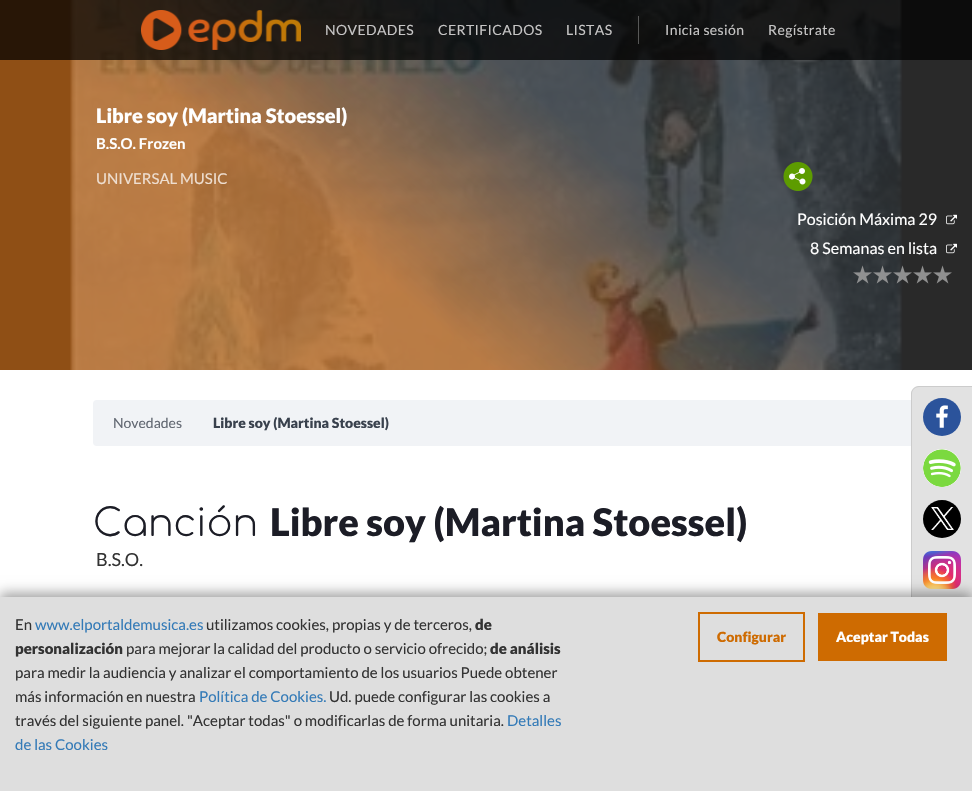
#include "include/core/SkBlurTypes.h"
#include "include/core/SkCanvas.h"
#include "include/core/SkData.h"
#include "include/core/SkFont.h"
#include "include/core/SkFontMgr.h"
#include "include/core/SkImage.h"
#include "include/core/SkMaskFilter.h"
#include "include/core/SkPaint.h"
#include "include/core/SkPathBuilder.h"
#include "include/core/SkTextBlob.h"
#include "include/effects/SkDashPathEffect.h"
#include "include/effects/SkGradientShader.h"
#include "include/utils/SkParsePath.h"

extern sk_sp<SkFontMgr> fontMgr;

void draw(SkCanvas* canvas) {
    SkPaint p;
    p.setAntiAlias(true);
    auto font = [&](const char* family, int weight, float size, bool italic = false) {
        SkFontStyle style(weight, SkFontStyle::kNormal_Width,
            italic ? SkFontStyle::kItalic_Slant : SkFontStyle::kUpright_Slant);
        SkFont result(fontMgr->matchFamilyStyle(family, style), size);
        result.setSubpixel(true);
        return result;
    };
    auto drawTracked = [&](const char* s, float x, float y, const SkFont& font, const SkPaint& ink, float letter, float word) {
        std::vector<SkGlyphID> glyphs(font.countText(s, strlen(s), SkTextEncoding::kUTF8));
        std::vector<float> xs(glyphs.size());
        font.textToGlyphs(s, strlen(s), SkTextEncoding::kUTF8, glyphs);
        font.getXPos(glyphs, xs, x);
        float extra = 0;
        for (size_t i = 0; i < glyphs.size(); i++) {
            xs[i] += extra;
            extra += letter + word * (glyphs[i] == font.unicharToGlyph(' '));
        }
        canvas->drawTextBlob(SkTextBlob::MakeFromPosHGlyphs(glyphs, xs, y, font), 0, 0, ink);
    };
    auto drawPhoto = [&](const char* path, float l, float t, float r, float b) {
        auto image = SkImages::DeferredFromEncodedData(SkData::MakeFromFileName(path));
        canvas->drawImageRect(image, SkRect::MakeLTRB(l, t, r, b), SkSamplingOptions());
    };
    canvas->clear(0xFFFFFFFF);
    {
        const SkColor colors[] = {0xFFB3621A, 0xFF333333};
        const float stops[] = {0.35f, 0.61f};
        const SkPoint ends[] = {{185, 531}, {787, -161}};
        p.setShader(SkGradientShader::MakeLinear(ends, colors, stops, 2, SkTileMode::kClamp));
        p.setAlpha(255);
    }
    canvas->drawRect(SkRect::MakeLTRB(0, 0, 972, 370), p);
    drawPhoto("media/2.png", 0, 0, 972, 370);
    p.setShader(nullptr);
    p.setColor(0xB8000000);
    canvas->drawRect(SkRect::MakeLTRB(0, 0, 972, 60), p);
    drawPhoto("media/1.png", 141, 10, 301, 50);
    auto font1 = font("Lato", 400, 14);
    p.setColor(0xFFC6C5C5);
    {
        const struct { const char* s; float x, y; } items[] = {
            {"NOVEDADES", 325, 35},
            {"CERTIFICADOS", 438, 35},
            {"LISTAS", 566, 35},
        };
        for (auto [s, x, y] : items) {
            drawTracked(s, x, y, font1, p, 0.4f, 0);
        }
    }
    p.setColor(0x4DFFFFFF);
    canvas->drawRect(SkRect::MakeLTRB(638, 16, 639, 44), p);
    p.setColor(0xFFC6C5C5);
    drawTracked("Inicia sesión", 665, 35, font1, p, 0.4f, 0);
    drawTracked("Regístrate", 768, 35, font1, p, 0.4f, 0);
    auto font2 = font("Lato", 900, 20);
    p.setColor(0xFFFFFFFF);
    canvas->drawString("Libre soy (Martina Stoessel)", 96, 123, font2, p);
    auto font3 = font("Lato", 700, 15);
    canvas->drawString("B.S.O. Frozen", 96, 149, font3, p);
    auto font4 = font("Lato", 400, 15);
    p.setColor(0xFFEEDED0);
    canvas->drawString("UNIVERSAL", 96, 184, font4, p);
    canvas->drawString("MUSIC", 180, 184, font4, p);
    drawPhoto("media/3.png", 783, 162, 813, 191);
    drawPhoto("media/4.png", 946, 214, 957, 225);
    auto font5 = font("Lato", 400, 16);
    p.setColor(0xFFFFFFFF);
    canvas->drawString("Posición Máxima 29", 797, 225, font5, p);
    drawPhoto("media/4.png", 946, 243, 957, 254);
    canvas->drawString("8 Semanas en lista", 810, 254, font5, p);
    drawPhoto("media/5.png", 853, 265, 872, 284);
    drawPhoto("media/6.png", 873, 265, 892, 284);
    drawPhoto("media/7.png", 893, 265, 912, 284);
    drawPhoto("media/8.png", 913, 265, 932, 284);
    drawPhoto("media/8.png", 933, 265, 952, 284);
    p.setColor(0xFFF1F3F6);
    canvas->drawRoundRect(SkRect::MakeLTRB(93, 400, 957, 446), 4, 4, p);
    p.setColor(0xFF626872);
    canvas->drawString("Novedades", 113, 428, font1, p);
    auto font6 = font("Lato", 900, 14);
    p.setColor(0xFF39414D);
    canvas->drawString("Libre soy (Martina Stoessel)", 213, 428, font6, p);
    auto font7 = font("Comfortaa", 300, 38);
    p.setColor(0xFF1C1D26);
    canvas->drawString("Canción", 93, 536, font7, p);
    auto font8 = font("Lato", 900, 38);
    canvas->drawString("Libre soy (Martina Stoessel)", 270, 536, font8, p);
    auto font9 = font("Lato", 400, 18);
    p.setColor(0xFF333333);
    canvas->drawString("B.S.O.", 96, 566, font9, p);
    p.setColor(0xFFE2E2E2);
    canvas->drawPath(SkPathBuilder().moveTo(919, 386).lineTo(972, 386).lineTo(972, 660).lineTo(919, 660).cubicTo(914.5f, 660, 911, 656.5f, 911, 652).lineTo(911, 394).cubicTo(911, 389.5f, 914.5f, 386, 919, 386).close().detach(), p);
    p.setColor(0xFFCCCCCC);
    canvas->drawPath(SkPathBuilder(SkPathFillType::kEvenOdd).moveTo(919, 386).lineTo(972, 386).lineTo(972, 660).lineTo(919, 660).cubicTo(915, 660, 911, 656, 911, 652).lineTo(911, 394).cubicTo(911, 390, 915, 386, 919, 386).close().moveTo(919, 387).lineTo(972, 387).lineTo(972, 659).lineTo(919, 659).cubicTo(915, 659, 912, 656, 912, 652).lineTo(912, 394).cubicTo(912, 390, 915, 387, 919, 387).close().detach(), p);
    p.setColor(0xFF2B539B);
    canvas->drawCircle(942, 417, 19, p);
    drawPhoto("media/9.png", 936, 405, 948, 428);
    p.setColor(0xFFFFFFFF);
    canvas->drawCircle(942, 468, 19, p);
    drawPhoto("media/10.png", 923, 449, 961, 487);
    p.setColor(0xFF000000);
    canvas->drawCircle(942, 519, 19, p);
    drawPhoto("media/11.png", 931, 507, 954, 530);
    drawPhoto("media/12.png", 923, 551, 961, 589);
    p.setColor(0x5E000000);
    p.setMaskFilter(SkMaskFilter::MakeBlur(kNormal_SkBlurStyle, 6));
    canvas->drawRect(SkRect::MakeLTRB(0, 593, 972, 787), p);
    p.setMaskFilter(nullptr);
    p.setColor(0xFFDEDEDE);
    canvas->drawRect(SkRect::MakeLTRB(0, 597, 972, 791), p);
    p.setColor(0xFF333333);
    canvas->drawString("En", 15, 630, font4, p);
    p.setColor(0xFF337AB7);
    canvas->drawString("www.elportaldemusica.es", 35, 630, font4, p);
    p.setColor(0xFF333333);
    canvas->drawString("utilizamos cookies, propias y de terceros,", 206, 630, font4, p);
    auto font10 = font("Lato", 900, 15);
    canvas->drawString("de", 475, 630, font10, p);
    canvas->drawString("personalización", 15, 654, font10, p);
    canvas->drawString("para mejorar la calidad del producto o servicio ofrecido;", 126, 654, font4, p);
    canvas->drawString("de análisis", 490, 654, font10, p);
    canvas->drawString("para medir la audiencia y analizar el comportamiento de los usuarios Puede obtener", 15, 678, font4, p);
    canvas->drawString("más información en nuestra", 15, 702, font4, p);
    p.setColor(0xFF337AB7);
    canvas->drawString("Política de Cookies.", 199, 702, font4, p);
    p.setColor(0xFF333333);
    canvas->drawString("Ud. puede configurar las cookies a", 329, 702, font4, p);
    canvas->drawString("través del siguiente panel. \"Aceptar todas\" o modificarlas de forma unitaria.", 15, 726, font4, p);
    p.setColor(0xFF337AB7);
    canvas->drawString("Detalles", 507, 726, font4, p);
    canvas->drawString("de las Cookies", 15, 750, font4, p);
    p.setStyle(SkPaint::kStroke_Style);
    p.setStrokeWidth(2);
    p.setColor(0xFFCE6B01);
    canvas->drawRect(SkRect::MakeLTRB(699, 613, 804, 661), p);
    p.setStyle(SkPaint::kFill_Style);
    canvas->drawString("Configurar", 717, 642, font6, p);
    canvas->drawRect(SkRect::MakeLTRB(818, 613, 947, 661), p);
    p.setColor(0xFFFFFFFF);
    canvas->drawString("Aceptar Todas", 836, 642, font6, p);
}
